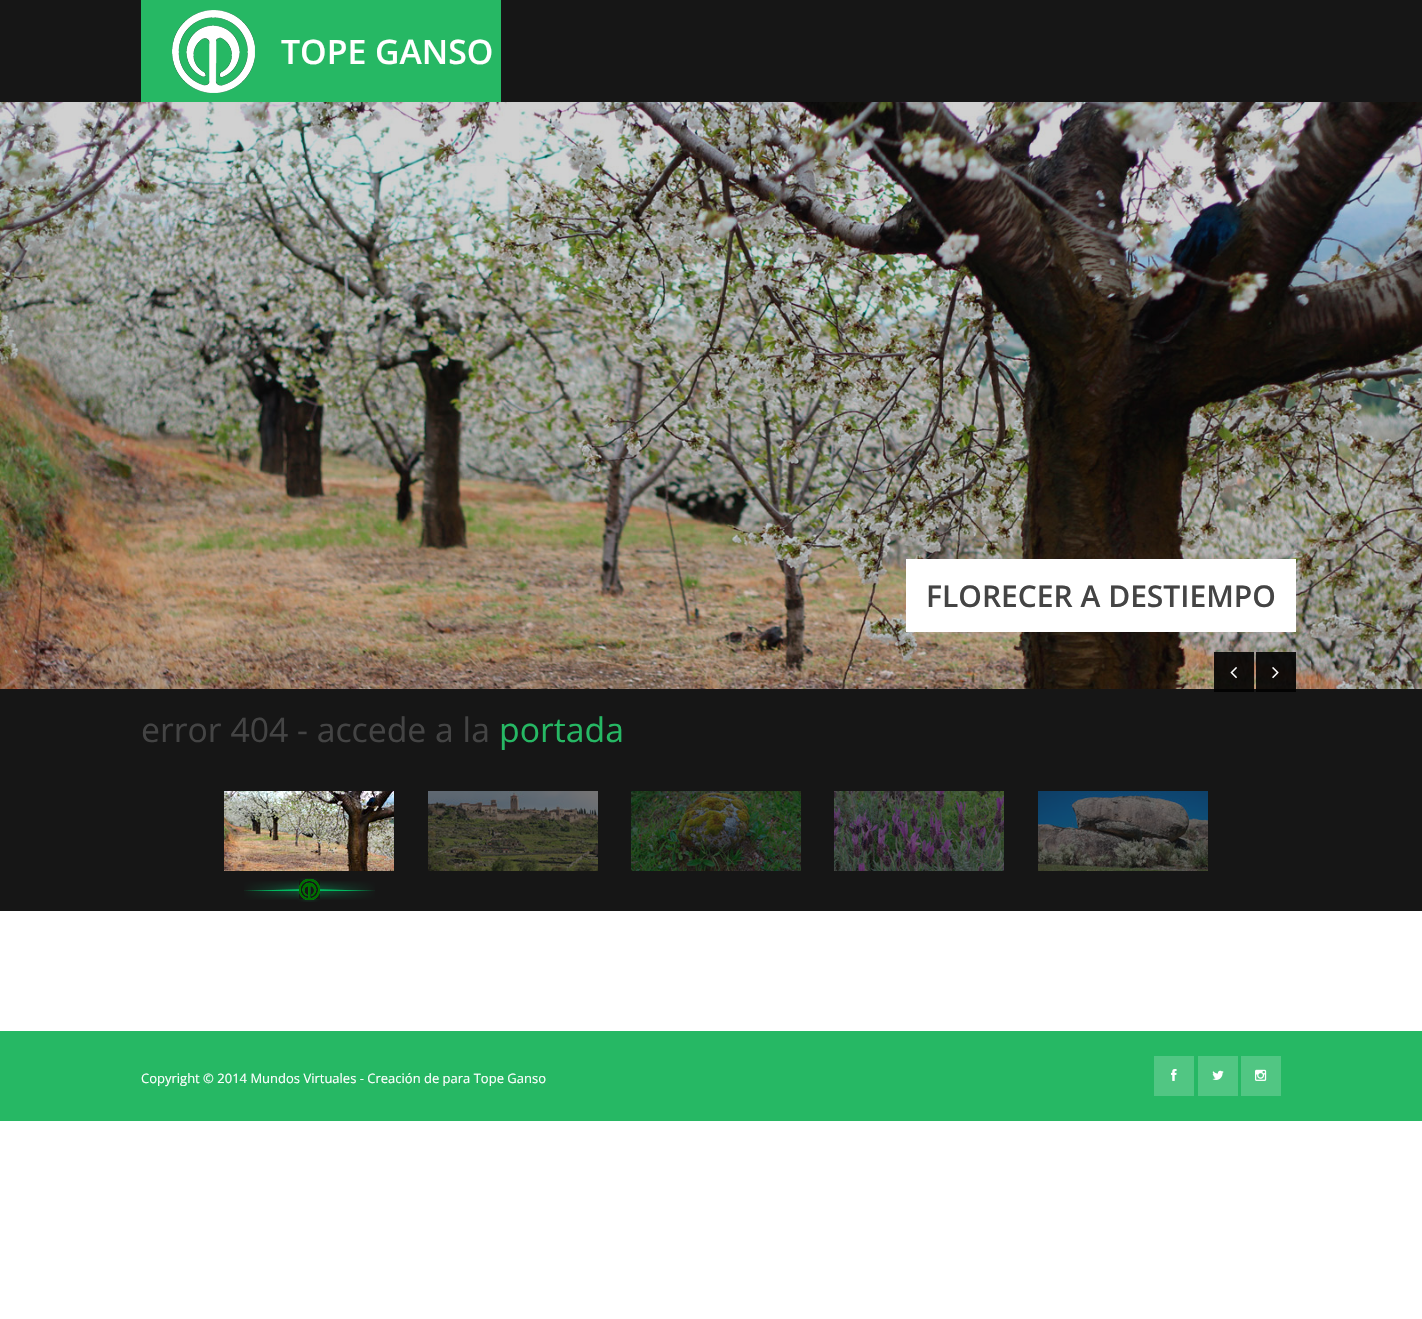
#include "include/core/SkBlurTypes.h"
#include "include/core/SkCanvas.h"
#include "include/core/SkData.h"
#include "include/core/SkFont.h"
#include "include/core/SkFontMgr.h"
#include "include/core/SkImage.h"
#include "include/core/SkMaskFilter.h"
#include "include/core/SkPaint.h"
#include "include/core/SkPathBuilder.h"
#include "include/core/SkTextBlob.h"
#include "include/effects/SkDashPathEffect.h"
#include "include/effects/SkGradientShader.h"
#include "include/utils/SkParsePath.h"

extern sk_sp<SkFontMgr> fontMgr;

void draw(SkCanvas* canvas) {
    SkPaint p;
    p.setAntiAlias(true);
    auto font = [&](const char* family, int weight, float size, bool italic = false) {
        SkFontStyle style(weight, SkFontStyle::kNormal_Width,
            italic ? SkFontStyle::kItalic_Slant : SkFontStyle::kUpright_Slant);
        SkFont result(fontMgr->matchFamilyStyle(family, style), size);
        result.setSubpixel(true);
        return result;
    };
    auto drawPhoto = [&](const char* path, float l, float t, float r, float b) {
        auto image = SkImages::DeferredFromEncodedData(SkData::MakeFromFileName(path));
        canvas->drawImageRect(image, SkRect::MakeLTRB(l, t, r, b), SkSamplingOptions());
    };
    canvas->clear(0xFFFFFFFF);
    p.setColor(0xFF161616);
    canvas->drawRect(SkRect::MakeLTRB(0, 0, 1422, 911), p);
    p.setColor(0xFF26B864);
    canvas->drawRect(SkRect::MakeLTRB(141, 0, 501, 102), p);
    drawPhoto("media/1.png", 172, 10, 255, 93);
    auto font1 = font("Open Sans", 600, 33.75f);
    p.setColor(0xFFFFFFFF);
    canvas->drawString("TOPE GANSO", 281, 64, font1, p);
    drawPhoto("media/2.png", 0, 102, 1422, 689);
    canvas->drawRect(SkRect::MakeLTRB(906, 559, 1296, 632), p);
    auto font2 = font("Open Sans", 600, 30);
    p.setColor(0xFF444444);
    canvas->drawString("FLORECER A DESTIEMPO", 926, 607, font2, p);
    auto font3 = font("Open Sans", 400, 33.75f);
    canvas->drawString("error 404 - accede a la", 141, 742, font3, p);
    p.setColor(0xFF26B864);
    canvas->drawString("portada", 499, 742, font3, p);
    p.setColor(0xE6000000);
    canvas->drawRect(SkRect::MakeLTRB(1214, 652, 1254, 692), p);
    drawPhoto("media/3.png", 1230, 667, 1237, 679);
    canvas->drawRect(SkRect::MakeLTRB(1256, 652, 1296, 692), p);
    drawPhoto("media/4.png", 1272, 667, 1279, 679);
    drawPhoto("media/5.png", 244, 878, 375, 902);
    drawPhoto("media/6.png", 224, 791, 394, 871);
    drawPhoto("media/7.png", 428, 791, 598, 871);
    drawPhoto("media/8.png", 631, 791, 801, 871);
    drawPhoto("media/9.png", 834, 791, 1004, 871);
    drawPhoto("media/10.png", 1038, 791, 1208, 871);
    p.setColor(0xFF26B864);
    canvas->drawRect(SkRect::MakeLTRB(0, 1031, 1422, 1121), p);
    auto font4 = font("Open Sans", 400, 13);
    p.setColor(0xFFFFFFFF);
    canvas->drawString("Copyright © 2014 Mundos Virtuales - Creación de para Tope Ganso", 141, 1083, font4, p);
    p.setColor(0xFF51C683);
    canvas->drawRect(SkRect::MakeLTRB(1154, 1056, 1194, 1096), p);
    drawPhoto("media/11.png", 1171, 1069, 1177, 1081);
    canvas->drawRect(SkRect::MakeLTRB(1198, 1056, 1238, 1096), p);
    drawPhoto("media/12.png", 1212, 1070, 1224, 1080);
    canvas->drawRect(SkRect::MakeLTRB(1241, 1056, 1281, 1096), p);
    drawPhoto("media/13.png", 1255, 1069, 1267, 1081);
}
